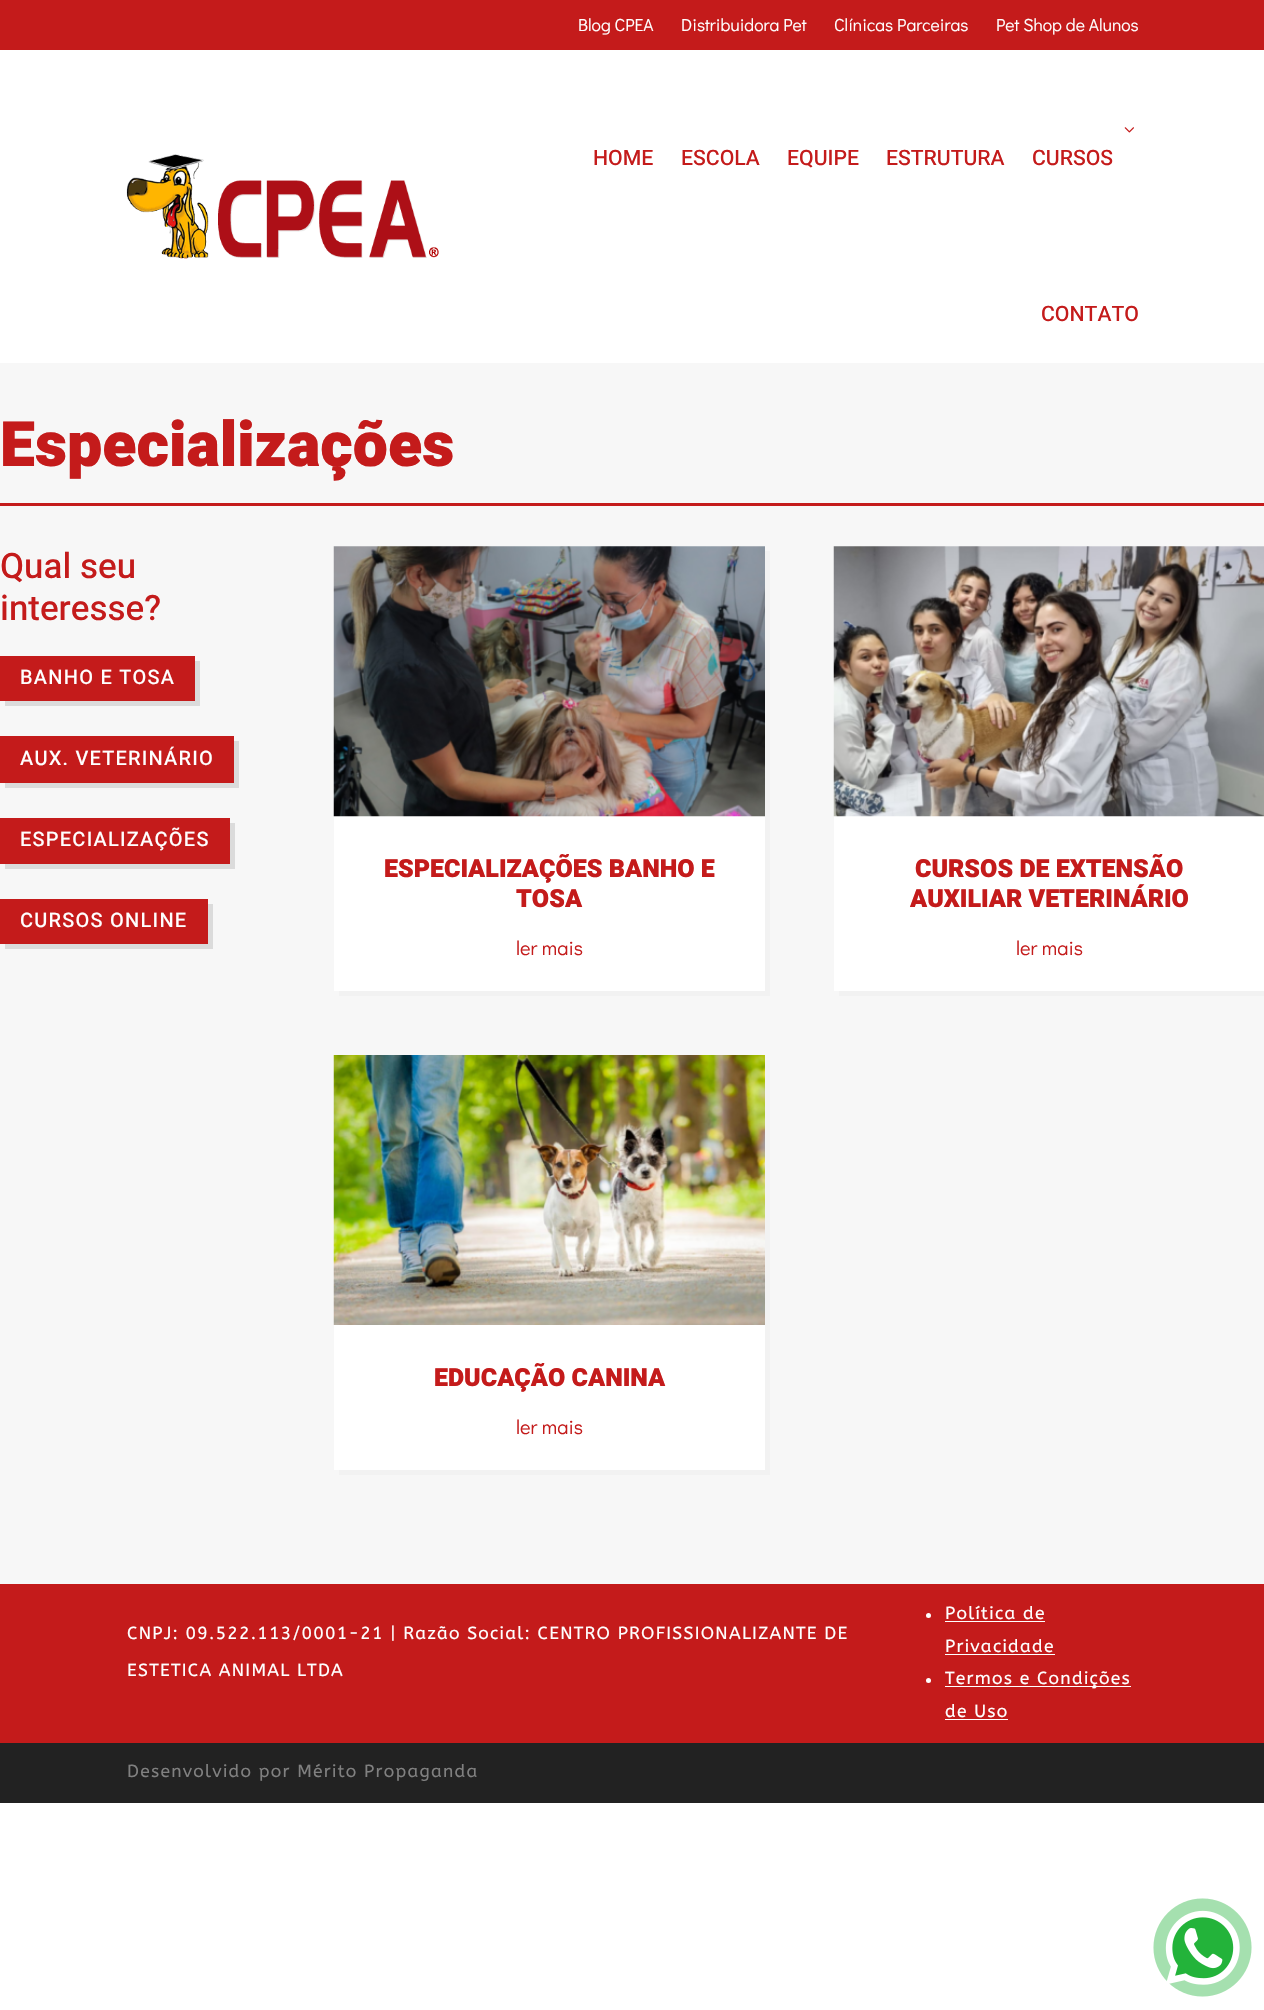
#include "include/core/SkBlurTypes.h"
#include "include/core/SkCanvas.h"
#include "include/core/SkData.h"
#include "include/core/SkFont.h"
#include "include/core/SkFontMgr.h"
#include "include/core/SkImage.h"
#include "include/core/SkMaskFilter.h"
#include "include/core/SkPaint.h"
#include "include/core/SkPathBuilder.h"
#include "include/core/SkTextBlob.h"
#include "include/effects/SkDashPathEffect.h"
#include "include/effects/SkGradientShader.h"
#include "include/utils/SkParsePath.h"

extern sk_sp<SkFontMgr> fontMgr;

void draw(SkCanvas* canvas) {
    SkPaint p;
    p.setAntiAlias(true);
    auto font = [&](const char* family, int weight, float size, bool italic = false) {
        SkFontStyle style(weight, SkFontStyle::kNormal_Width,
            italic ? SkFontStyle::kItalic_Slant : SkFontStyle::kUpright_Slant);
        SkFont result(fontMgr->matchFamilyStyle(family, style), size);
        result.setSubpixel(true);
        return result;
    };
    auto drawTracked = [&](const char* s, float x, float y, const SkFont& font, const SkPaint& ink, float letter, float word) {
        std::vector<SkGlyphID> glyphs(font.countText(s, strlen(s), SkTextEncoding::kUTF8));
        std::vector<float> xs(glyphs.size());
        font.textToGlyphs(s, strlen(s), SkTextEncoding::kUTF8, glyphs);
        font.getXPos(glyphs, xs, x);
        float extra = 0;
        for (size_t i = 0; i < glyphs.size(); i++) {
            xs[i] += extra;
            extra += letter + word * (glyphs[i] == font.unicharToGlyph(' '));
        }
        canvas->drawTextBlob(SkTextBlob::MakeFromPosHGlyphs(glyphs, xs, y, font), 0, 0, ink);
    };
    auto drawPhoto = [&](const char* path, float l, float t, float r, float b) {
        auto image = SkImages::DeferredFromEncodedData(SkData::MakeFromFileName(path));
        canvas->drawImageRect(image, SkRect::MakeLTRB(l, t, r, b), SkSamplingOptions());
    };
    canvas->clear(0xFFFFFFFF);
    p.setColor(0xFFC41B1B);
    canvas->drawRect(SkRect::MakeLTRB(0, 0, 1264, 50), p);
    auto font1 = font("Didact Gothic", 400, 17.5f);
    p.setColor(0xFFFFFFFF);
    {
        const struct { const char* s; float x, y; } items[] = {
            {"Blog CPEA", 578, 31},
            {"Distribuidora Pet", 681, 31},
            {"Clínicas Parceiras", 834, 31},
            {"Pet Shop de Alunos", 996, 31},
        };
        for (auto [s, x, y] : items) {
            canvas->drawString(s, x, y, font1, p);
        }
    }
    drawPhoto("media/1.png", 126, 154, 439, 259);
    auto font2 = font("Heebo", 500, 21.25f);
    p.setColor(0xFFC41B1B);
    {
        const struct { const char* s; float x, y; } items[] = {
            {"HOME", 593, 165},
            {"ESCOLA", 681, 165},
            {"EQUIPE", 787, 165},
            {"ESTRUTURA", 886, 165},
        };
        for (auto [s, x, y] : items) {
            canvas->drawString(s, x, y, font2, p);
        }
    }
    drawPhoto("media/2.png", 1124, 127, 1134, 133);
    canvas->drawString("CURSOS", 1032, 165, font2, p);
    canvas->drawString("CONTATO", 1041, 321, font2, p);
    drawPhoto("media/3.png", 1153, 1898, 1252, 1997);
    p.setColor(0xFFF7F7F7);
    canvas->drawRect(SkRect::MakeLTRB(0, 363, 1264, 1584), p);
    auto font3 = font("Heebo", 900, 62.5f);
    p.setColor(0xFFC41B1B);
    canvas->drawString("Especializações", 0, 466, font3, p);
    canvas->drawRect(SkRect::MakeLTRB(0, 503, 1264, 506), p);
    auto font4 = font("Heebo", 500, 35);
    canvas->drawString("Qual seu", 0, 578, font4, p);
    canvas->drawString("interesse?", 0, 620, font4, p);
    p.setColor(0xFFDBDBDB);
    canvas->drawPath(SkPathBuilder().moveTo(5, 701).lineTo(5, 706).lineTo(200, 706).lineTo(200, 661).lineTo(195, 661).lineTo(195, 701).close().detach(), p);
    p.setColor(0xFFC41B1B);
    canvas->drawRect(SkRect::MakeLTRB(0, 656, 195, 701), p);
    auto font5 = font("Heebo", 500, 20);
    p.setColor(0xFFFFFFFF);
    drawTracked("BANHO E TOSA", 20, 684, font5, p, 1.25f, 0);
    p.setColor(0xFFDBDBDB);
    canvas->drawPath(SkPathBuilder().moveTo(5, 782).lineTo(5, 788).lineTo(239, 788).lineTo(239, 741).lineTo(234, 741).lineTo(234, 782).close().detach(), p);
    p.setColor(0xFFC41B1B);
    canvas->drawRect(SkRect::MakeLTRB(0, 736, 234, 783), p);
    p.setColor(0xFFFFFFFF);
    drawTracked("AUX. VETERINÁRIO", 20, 765, font5, p, 1.25f, 0);
    p.setColor(0xFFDBDBDB);
    canvas->drawPath(SkPathBuilder().moveTo(5, 864).lineTo(5, 869).lineTo(235, 869).lineTo(235, 823).lineTo(230, 823).lineTo(230, 864).close().detach(), p);
    p.setColor(0xFFC41B1B);
    canvas->drawRect(SkRect::MakeLTRB(0, 818, 230, 864), p);
    p.setColor(0xFFFFFFFF);
    drawTracked("ESPECIALIZAÇÕES", 20, 846, font5, p, 1.25f, 0);
    p.setColor(0xFFDBDBDB);
    canvas->drawPath(SkPathBuilder().moveTo(5, 944).lineTo(5, 949).lineTo(213, 949).lineTo(213, 904).lineTo(208, 904).lineTo(208, 944).close().detach(), p);
    p.setColor(0xFFC41B1B);
    canvas->drawRect(SkRect::MakeLTRB(0, 899, 208, 944), p);
    p.setColor(0xFFFFFFFF);
    drawTracked("CURSOS ONLINE", 20, 927, font5, p, 1.25f, 0);
    p.setColor(0xFFF2F2F2);
    canvas->drawPath(SkPathBuilder().moveTo(339, 991).lineTo(339, 996).lineTo(770, 996).lineTo(770, 551).lineTo(765, 551).lineTo(765, 991).close().detach(), p);
    p.setColor(0xFFFFFFFF);
    canvas->drawRect(SkRect::MakeLTRB(334, 546, 765, 991), p);
    drawPhoto("media/4.png", 333, 546, 765, 817);
    auto font6 = font("Heebo", 900, 25);
    p.setColor(0xFFC41B1B);
    canvas->drawString("ESPECIALIZAÇÕES BANHO E", 384, 877, font6, p);
    canvas->drawString("TOSA", 516, 907, font6, p);
    auto font7 = font("Didact Gothic", 400, 20);
    canvas->drawString("ler mais", 516, 955, font7, p);
    p.setColor(0xFFF2F2F2);
    canvas->drawPath(SkPathBuilder().moveTo(339, 1470).lineTo(339, 1475).lineTo(770, 1475).lineTo(770, 1060).lineTo(765, 1060).lineTo(765, 1470).close().detach(), p);
    p.setColor(0xFFFFFFFF);
    canvas->drawRect(SkRect::MakeLTRB(334, 1325, 765, 1470), p);
    drawPhoto("media/5.png", 333, 1055, 765, 1325);
    p.setColor(0xFFC41B1B);
    canvas->drawString("EDUCAÇÃO CANINA", 434, 1386, font6, p);
    canvas->drawString("ler mais", 516, 1434, font7, p);
    p.setColor(0xFFF2F2F2);
    canvas->drawPath(SkPathBuilder().moveTo(839, 991).lineTo(839, 996).lineTo(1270, 996).lineTo(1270, 551).lineTo(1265, 551).lineTo(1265, 991).close().detach(), p);
    p.setColor(0xFFFFFFFF);
    canvas->drawRect(SkRect::MakeLTRB(834, 546, 1264, 991), p);
    drawPhoto("media/6.png", 833, 546, 1264, 817);
    p.setColor(0xFFC41B1B);
    canvas->drawString("CURSOS DE EXTENSÃO", 915, 877, font6, p);
    canvas->drawString("AUXILIAR VETERINÁRIO", 910, 907, font6, p);
    canvas->drawString("ler mais", 1016, 955, font7, p);
    canvas->drawRect(SkRect::MakeLTRB(0, 1584, 1264, 1743), p);
    auto font8 = font("ABeeZee", 400, 17.5f);
    p.setColor(0xFFFFFFFF);
    drawTracked("CNPJ: 09.522.113/0001-21 | Razão Social: CENTRO PROFISSIONALIZANTE DE", 127, 1639, font8, p, 1.25f, 0);
    drawTracked("ESTETICA ANIMAL LTDA", 127, 1676, font8, p, 1.25f, 0);
    canvas->drawCircle(928.5f, 1615.5f, 2.5f, p);
    drawTracked("Política de", 945, 1619, font8, p, 1.25f, 0);
    canvas->drawRect(SkRect::MakeLTRB(945, 1621, 1045, 1622), p);
    drawTracked("Privacidade", 945, 1652, font8, p, 1.25f, 0);
    canvas->drawRect(SkRect::MakeLTRB(945, 1654, 1055, 1655), p);
    canvas->drawCircle(928.5f, 1680.5f, 2.5f, p);
    canvas->drawRect(SkRect::MakeLTRB(945, 1686, 1131, 1687), p);
    drawTracked("Termos e Condições", 945, 1684, font8, p, 1.25f, 0);
    drawTracked("de Uso", 945, 1717, font8, p, 1.25f, 0);
    canvas->drawRect(SkRect::MakeLTRB(945, 1719, 1008, 1720), p);
    p.setColor(0xFF222222);
    canvas->drawRect(SkRect::MakeLTRB(0, 1743, 1264, 1803), p);
    p.setColor(0xFF808080);
    drawTracked("Desenvolvido por Mérito Propaganda", 127, 1777, font8, p, 1.25f, 0);
}
